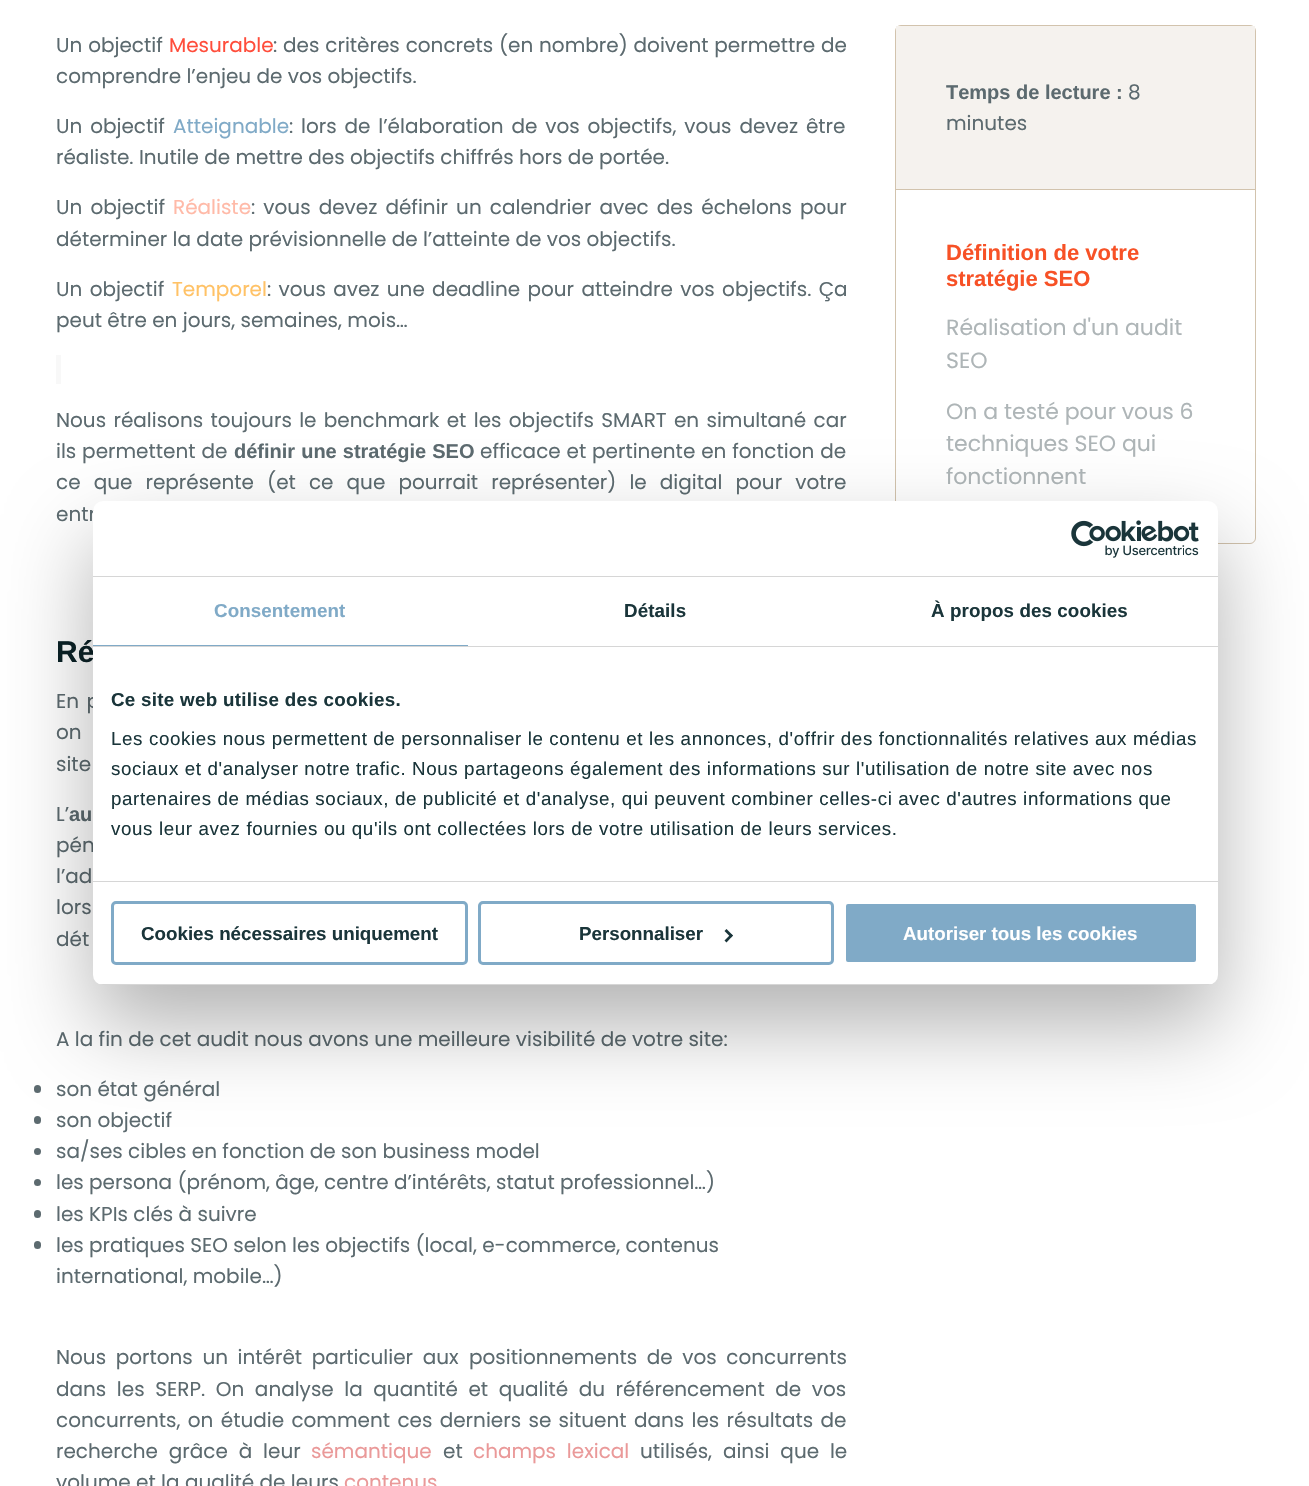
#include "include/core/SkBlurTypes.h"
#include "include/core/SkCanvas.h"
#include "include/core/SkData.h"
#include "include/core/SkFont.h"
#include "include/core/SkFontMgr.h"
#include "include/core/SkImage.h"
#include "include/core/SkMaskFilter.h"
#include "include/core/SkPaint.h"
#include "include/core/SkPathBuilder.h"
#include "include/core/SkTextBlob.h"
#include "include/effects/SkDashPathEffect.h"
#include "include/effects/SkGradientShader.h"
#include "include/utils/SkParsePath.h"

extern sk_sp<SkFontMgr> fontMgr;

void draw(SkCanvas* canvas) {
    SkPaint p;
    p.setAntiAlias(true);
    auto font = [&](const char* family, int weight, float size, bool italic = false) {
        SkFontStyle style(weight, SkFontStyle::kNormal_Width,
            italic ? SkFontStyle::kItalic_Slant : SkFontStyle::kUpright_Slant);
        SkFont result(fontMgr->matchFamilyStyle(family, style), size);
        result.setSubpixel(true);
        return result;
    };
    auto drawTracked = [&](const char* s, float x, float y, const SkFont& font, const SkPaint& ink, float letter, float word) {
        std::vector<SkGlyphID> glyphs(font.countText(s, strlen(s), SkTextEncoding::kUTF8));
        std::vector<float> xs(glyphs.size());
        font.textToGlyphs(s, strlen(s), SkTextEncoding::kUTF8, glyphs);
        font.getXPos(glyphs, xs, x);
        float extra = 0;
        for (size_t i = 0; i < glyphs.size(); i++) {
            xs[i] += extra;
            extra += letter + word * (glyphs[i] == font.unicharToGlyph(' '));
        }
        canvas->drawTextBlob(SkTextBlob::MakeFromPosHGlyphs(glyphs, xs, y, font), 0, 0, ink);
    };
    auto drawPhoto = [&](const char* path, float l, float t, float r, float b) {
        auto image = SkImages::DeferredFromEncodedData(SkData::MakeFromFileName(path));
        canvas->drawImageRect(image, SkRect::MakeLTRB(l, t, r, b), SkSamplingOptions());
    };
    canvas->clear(0xFFFFFFFF);
    auto font1 = font("Poppins", 400, 20);
    p.setColor(0xFF5C6A6F);
    drawTracked("Un objectif", 56, 52, font1, p, 0, 0.5f);
    p.setColor(0xFFFF4D3B);
    canvas->drawString("Mesurable", 169, 52, font1, p);
    p.setColor(0xFF5C6A6F);
    drawTracked(": des critères concrets (en nombre) doivent permettre de", 273, 52, font1, p, 0, 0.5f);
    canvas->drawString("comprendre l’enjeu de vos objectifs.", 56, 83, font1, p);
    drawTracked("Un objectif", 56, 133, font1, p, 0, 2.5f);
    p.setColor(0xFF80AAC7);
    canvas->drawString("Atteignable", 173, 133, font1, p);
    p.setColor(0xFF5C6A6F);
    drawTracked(": lors de l’élaboration de vos objectifs, vous devez être", 289, 133, font1, p, 0, 2.5f);
    canvas->drawString("réaliste. Inutile de mettre des objectifs chiffrés hors de portée.", 56, 164, font1, p);
    drawTracked("Un objectif", 56, 214, font1, p, 0, 2.75f);
    p.setColor(0xFFFFBAA8);
    canvas->drawString("Réaliste", 173, 214, font1, p);
    p.setColor(0xFF5C6A6F);
    drawTracked(": vous devez définir un calendrier avec des échelons pour", 251, 214, font1, p, 0, 2.75f);
    canvas->drawString("déterminer la date prévisionnelle de l’atteinte de vos objectifs.", 56, 246, font1, p);
    drawTracked("Un objectif", 56, 296, font1, p, 0, 2);
    p.setColor(0xFFFFC266);
    canvas->drawString("Temporel", 172, 296, font1, p);
    p.setColor(0xFF5C6A6F);
    drawTracked(": vous avez une deadline pour atteindre vos objectifs. Ça", 267, 296, font1, p, 0, 2);
    canvas->drawString("peut être en jours, semaines, mois…", 56, 327, font1, p);
    p.setColor(0xFFF8F8F8);
    canvas->drawRect(SkRect::MakeLTRB(56, 355, 61, 384), p);
    p.setColor(0xFF5C6A6F);
    drawTracked("Nous réalisons toujours le benchmark et les objectifs SMART en simultané car", 56, 427, font1, p, 0, 2);
    drawTracked("ils permettent de", 56, 458, font1, p, 0, 0.5f);
    auto font2 = font("Liberation Sans", 700, 20);
    drawTracked("définir une stratégie SEO", 234, 458, font2, p, 0, 0.5f);
    drawTracked("efficace et pertinente en fonction de", 480, 458, font1, p, 0, 0.5f);
    drawTracked("ce que représente (et ce que pourrait représenter) le digital pour votre", 56, 489, font1, p, 0, 7.75f);
    canvas->drawString("entr", 56, 521, font1, p);
    auto font3 = font("Liberation Sans", 700, 30);
    p.setColor(0xFF0A2126);
    canvas->drawString("Ré", 56, 662, font3, p);
    p.setColor(0xFF5C6A6F);
    drawTracked("En p", 56, 708, font1, p, 0, 2);
    drawTracked("on", 56, 739, font1, p, 0, 1);
    canvas->drawString("site", 56, 771, font1, p);
    canvas->drawString("L’", 56, 821, font1, p);
    drawTracked("au", 69, 821, font2, p, 0, 7);
    canvas->drawString("pén", 56, 852, font1, p);
    drawTracked("l’ad", 56, 883, font1, p, 0, 5);
    drawTracked("lors", 56, 914, font1, p, 0, 2);
    canvas->drawString("dét", 56, 946, font1, p);
    canvas->drawString("A la fin de cet audit nous avons une meilleure visibilité de votre site:", 56, 1046, font1, p);
    canvas->drawRoundRect(SkRect::MakeLTRB(34, 1085, 41, 1093), 3.5f, 3.5f, p);
    canvas->drawString("son état général", 56, 1096, font1, p);
    canvas->drawRoundRect(SkRect::MakeLTRB(34, 1116, 41, 1124), 3.5f, 3.5f, p);
    canvas->drawString("son objectif", 56, 1127, font1, p);
    canvas->drawCircle(37.5f, 1151.5f, 3.5f, p);
    canvas->drawString("sa/ses cibles en fonction de son business model", 56, 1158, font1, p);
    canvas->drawCircle(37.5f, 1182.5f, 3.5f, p);
    canvas->drawString("les persona (prénom, âge, centre d’intérêts, statut professionnel…)", 56, 1189, font1, p);
    canvas->drawRoundRect(SkRect::MakeLTRB(34, 1210, 41, 1218), 3.5f, 3.5f, p);
    canvas->drawString("les KPIs clés à suivre", 56, 1221, font1, p);
    canvas->drawRoundRect(SkRect::MakeLTRB(34, 1241, 41, 1249), 3.5f, 3.5f, p);
    canvas->drawString("les pratiques SEO selon les objectifs (local, e-commerce, contenus", 56, 1252, font1, p);
    canvas->drawString("international, mobile…)", 56, 1283, font1, p);
    drawTracked("Nous portons un intérêt particulier aux", 56, 1364, font1, p, 0, 4.25f);
    drawTracked("positionnements de vos concurrents", 469, 1364, font1, p, 0, 4.25f);
    drawTracked("dans les SERP. On analyse la quantité et qualité du référencement de vos", 56, 1396, font1, p, 0, 5.25f);
    drawTracked("concurrents, on étudie comment ces derniers se situent dans les résultats de", 56, 1427, font1, p, 0, 2);
    drawTracked("recherche grâce à leur", 56, 1458, font1, p, 0, 5.5f);
    p.setColor(0xFFEA9999);
    canvas->drawString("sémantique", 311, 1458, font1, p);
    p.setColor(0xFF5C6A6F);
    canvas->drawString("et", 443, 1458, font1, p);
    p.setColor(0xFFEA9999);
    drawTracked("champs lexical", 473, 1458, font1, p, 0, 5.5f);
    p.setColor(0xFF5C6A6F);
    drawTracked("utilisés, ainsi que le", 640, 1458, font1, p, 0, 5.5f);
    canvas->drawString("volume et la qualité de leurs", 56, 1489, font1, p);
    p.setColor(0xFFEA9999);
    canvas->drawString("contenus", 344, 1489, font1, p);
    p.setStyle(SkPaint::kStroke_Style);
    p.setStrokeWidth(1);
    p.setColor(0xFFD2C3AD);
    canvas->drawRoundRect(SkRect::MakeLTRB(895.5f, 25.5f, 1255.5f, 543.5f), 5.5f, 5.5f, p);
    p.setStyle(SkPaint::kFill_Style);
    p.setColor(0xFFF5F2EE);
    canvas->drawRect(SkRect::MakeLTRB(896, 26, 1255, 189), p);
    p.setColor(0xFFD2C3AD);
    canvas->drawRect(SkRect::MakeLTRB(896, 189, 1255, 190), p);
    p.setColor(0xFF5C6A6F);
    canvas->drawString("Temps de lecture :", 946, 99, font2, p);
    canvas->drawString("8", 1128, 99, font1, p);
    canvas->drawString("minutes", 946, 130, font1, p);
    auto font4 = font("Liberation Sans", 700, 22);
    p.setColor(0xFFF75126);
    canvas->drawString("Définition de votre", 946, 260, font4, p);
    canvas->drawString("stratégie SEO", 946, 286, font4, p);
    auto font5 = font("Poppins", 400, 22);
    p.setColor(0xFFAEB5B7);
    {
        const struct { const char* s; float x, y; } items[] = {
            {"Réalisation d'un audit", 946, 335},
            {"SEO", 946, 368},
            {"On a testé pour vous 6", 946, 419},
            {"techniques SEO qui", 946, 451},
            {"fonctionnent", 946, 484},
        };
        for (auto [s, x, y] : items) {
            canvas->drawString(s, x, y, font5, p);
        }
    }
    p.setColor(0x4D000000);
    p.setMaskFilter(SkMaskFilter::MakeBlur(kNormal_SkBlurStyle, 42.5f));
    canvas->drawRoundRect(SkRect::MakeLTRB(93, 541, 1218, 1025), 10, 10, p);
    p.setMaskFilter(nullptr);
    p.setColor(0xFFFFFFFF);
    canvas->drawRoundRect(SkRect::MakeLTRB(93, 501, 1218, 985), 10, 10, p);
    p.setColor(0xFFD6D6D6);
    canvas->drawRect(SkRect::MakeLTRB(93, 576, 1218, 577), p);
    drawPhoto("media/1.png", 1071, 520, 1199, 558);
    canvas->drawRect(SkRect::MakeLTRB(93, 646, 1218, 647), p);
    p.setColor(0xFF80AAC7);
    canvas->drawRect(SkRect::MakeLTRB(93, 645, 468, 646), p);
    auto font6 = font("Liberation Sans", 700, 18.75f);
    drawTracked("Consentement", 214, 617, font6, p, 0.1f, 0);
    p.setColor(0xFF1A353A);
    drawTracked("Détails", 624, 617, font6, p, 0.1f, 0);
    drawTracked("À propos des cookies", 931, 617, font6, p, 0.1f, 0);
    p.setColor(0xFFD6D6D6);
    canvas->drawRect(SkRect::MakeLTRB(93, 881, 1218, 882), p);
    p.setColor(0xFF1A353A);
    drawTracked("Ce site web utilise des cookies.", 111, 706, font6, p, 0.3f, 0);
    auto font7 = font("Liberation Sans", 400, 18.75f);
    {
        const struct { const char* s; float x, y; } items[] = {
            {"Les cookies nous permettent de personnaliser le contenu et les annonces, d'offrir des fonctionnalités relatives aux médias", 111, 745},
            {"sociaux et d'analyser notre trafic. Nous partageons également des informations sur l'utilisation de notre site avec nos", 111, 775},
            {"partenaires de médias sociaux, de publicité et d'analyse, qui peuvent combiner celles-ci avec d'autres informations que", 111, 805},
            {"vous leur avez fournies ou qu'ils ont collectées lors de votre utilisation de leurs services.", 111, 835},
        };
        for (auto [s, x, y] : items) {
            drawTracked(s, x, y, font7, p, 0.62f, 0);
        }
    }
    canvas->save();
    canvas->clipPath(SkPathBuilder().moveTo(103, 501).lineTo(1208, 501).cubicTo(1213.5f, 501, 1218, 505.5f, 1218, 511).lineTo(1218, 975).cubicTo(1218, 980.5f, 1213.5f, 985, 1208, 985).lineTo(103, 985).cubicTo(97.5f, 985, 93, 980.5f, 93, 975).lineTo(93, 511).cubicTo(93, 505.5f, 97.5f, 501, 103, 501).close().detach(), true);
    p.setColor(0xFFD6D6D6);
    canvas->drawRect(SkRect::MakeLTRB(93, 984, 1218, 985), p);
    canvas->restore();
    p.setStyle(SkPaint::kStroke_Style);
    p.setStrokeWidth(3);
    p.setColor(0xFF80AAC7);
    canvas->drawRoundRect(SkRect::MakeLTRB(112.5f, 902.5f, 466.5f, 963.5f), 3.5f, 3.5f, p);
    p.setStyle(SkPaint::kFill_Style);
    p.setColor(0xFF1A353A);
    canvas->drawString("Cookies nécessaires uniquement", 141, 940, font6, p);
    p.setStyle(SkPaint::kStroke_Style);
    p.setColor(0xFF80AAC7);
    canvas->drawRoundRect(SkRect::MakeLTRB(479.5f, 902.5f, 832.5f, 963.5f), 3.5f, 3.5f, p);
    p.setStyle(SkPaint::kFill_Style);
    p.setColor(0xFF1A353A);
    canvas->drawString("Personnaliser", 579, 940, font6, p);
    canvas->drawPath(SkPathBuilder().moveTo(726.5f, 929).lineTo(733, 935.5f).lineTo(731, 937.5f).lineTo(724.5f, 931).close().detach(), p);
    canvas->drawPath(SkPathBuilder().moveTo(731, 934).lineTo(733, 935.5f).lineTo(726.5f, 942.5f).lineTo(724.5f, 940.5f).close().detach(), p);
    p.setColor(0xFF80AAC7);
    canvas->drawRoundRect(SkRect::MakeLTRB(844.5f, 902.5f, 1197.5f, 963.5f), 3.5f, 3.5f, p);
    p.setStyle(SkPaint::kStroke_Style);
    p.setColor(0xFFFFFFFF);
    canvas->drawRoundRect(SkRect::MakeLTRB(844.5f, 902.5f, 1197.5f, 963.5f), 3.5f, 3.5f, p);
    p.setStyle(SkPaint::kFill_Style);
    canvas->drawString("Autoriser tous les cookies", 903, 940, font6, p);
}
